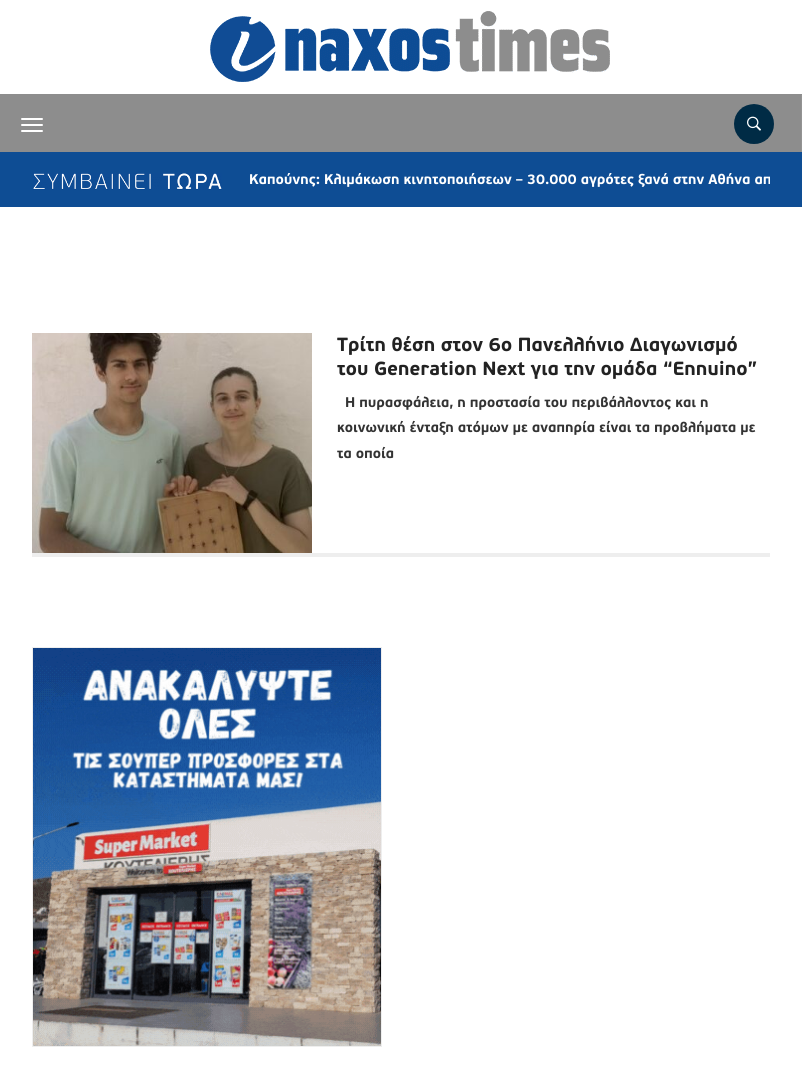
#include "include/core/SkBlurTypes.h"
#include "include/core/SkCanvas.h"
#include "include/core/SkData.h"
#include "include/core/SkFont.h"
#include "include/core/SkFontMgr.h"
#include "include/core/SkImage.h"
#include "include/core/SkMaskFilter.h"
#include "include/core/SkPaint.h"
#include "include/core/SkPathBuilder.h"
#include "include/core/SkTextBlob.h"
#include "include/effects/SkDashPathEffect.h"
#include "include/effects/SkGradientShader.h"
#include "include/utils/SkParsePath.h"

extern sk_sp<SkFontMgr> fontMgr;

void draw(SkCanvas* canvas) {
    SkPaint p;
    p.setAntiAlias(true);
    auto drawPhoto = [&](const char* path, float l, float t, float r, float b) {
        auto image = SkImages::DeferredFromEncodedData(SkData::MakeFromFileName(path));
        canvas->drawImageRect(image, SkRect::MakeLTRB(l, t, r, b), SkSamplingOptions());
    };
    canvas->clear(0xFFFFFFFF);
    drawPhoto("media/1.png", 210, 11, 610, 82);
    p.setColor(0xFF8D8D8D);
    canvas->drawRect(SkRect::MakeLTRB(0, 94, 802, 152), p);
    p.setColor(0xFF939393);
    canvas->drawRect(SkRect::MakeLTRB(801, 95, 802, 152), p);
    p.setColor(0xFFFFFFFF);
    canvas->drawRoundRect(SkRect::MakeLTRB(21, 118, 43, 120), 1, 1, p);
    canvas->drawRoundRect(SkRect::MakeLTRB(21, 124, 43, 126), 1, 1, p);
    canvas->drawRoundRect(SkRect::MakeLTRB(21, 130, 43, 132), 1, 1, p);
    p.setColor(0xFF002B45);
    canvas->drawCircle(754, 124, 20, p);
    drawPhoto("media/2.png", 747, 116, 761, 131);
    p.setColor(0xFF0E4D94);
    canvas->drawRect(SkRect::MakeLTRB(0, 152, 802, 207), p);
    drawPhoto("media/3.png", 33, 173, 222, 190);
    drawPhoto("media/4.png", 250, 173, 770, 187);
    p.setColor(0xFFEEEEEE);
    canvas->drawRect(SkRect::MakeLTRB(32, 553, 770, 557), p);
    drawPhoto("media/5.png", 32, 333, 312, 553);
    drawPhoto("media/6.png", 337, 335, 737, 355);
    drawPhoto("media/7.png", 337, 359, 757, 379);
    drawPhoto("media/8.png", 346, 395, 708, 410);
    drawPhoto("media/9.png", 337, 420, 756, 435);
    drawPhoto("media/10.png", 337, 446, 394, 459);
    p.setStyle(SkPaint::kStroke_Style);
    p.setStrokeWidth(1);
    canvas->drawRect(SkRect::MakeLTRB(32.5f, 647.5f, 381.5f, 1046.5f), p);
    drawPhoto("media/11.png", 33, 648, 381, 1046);
}
